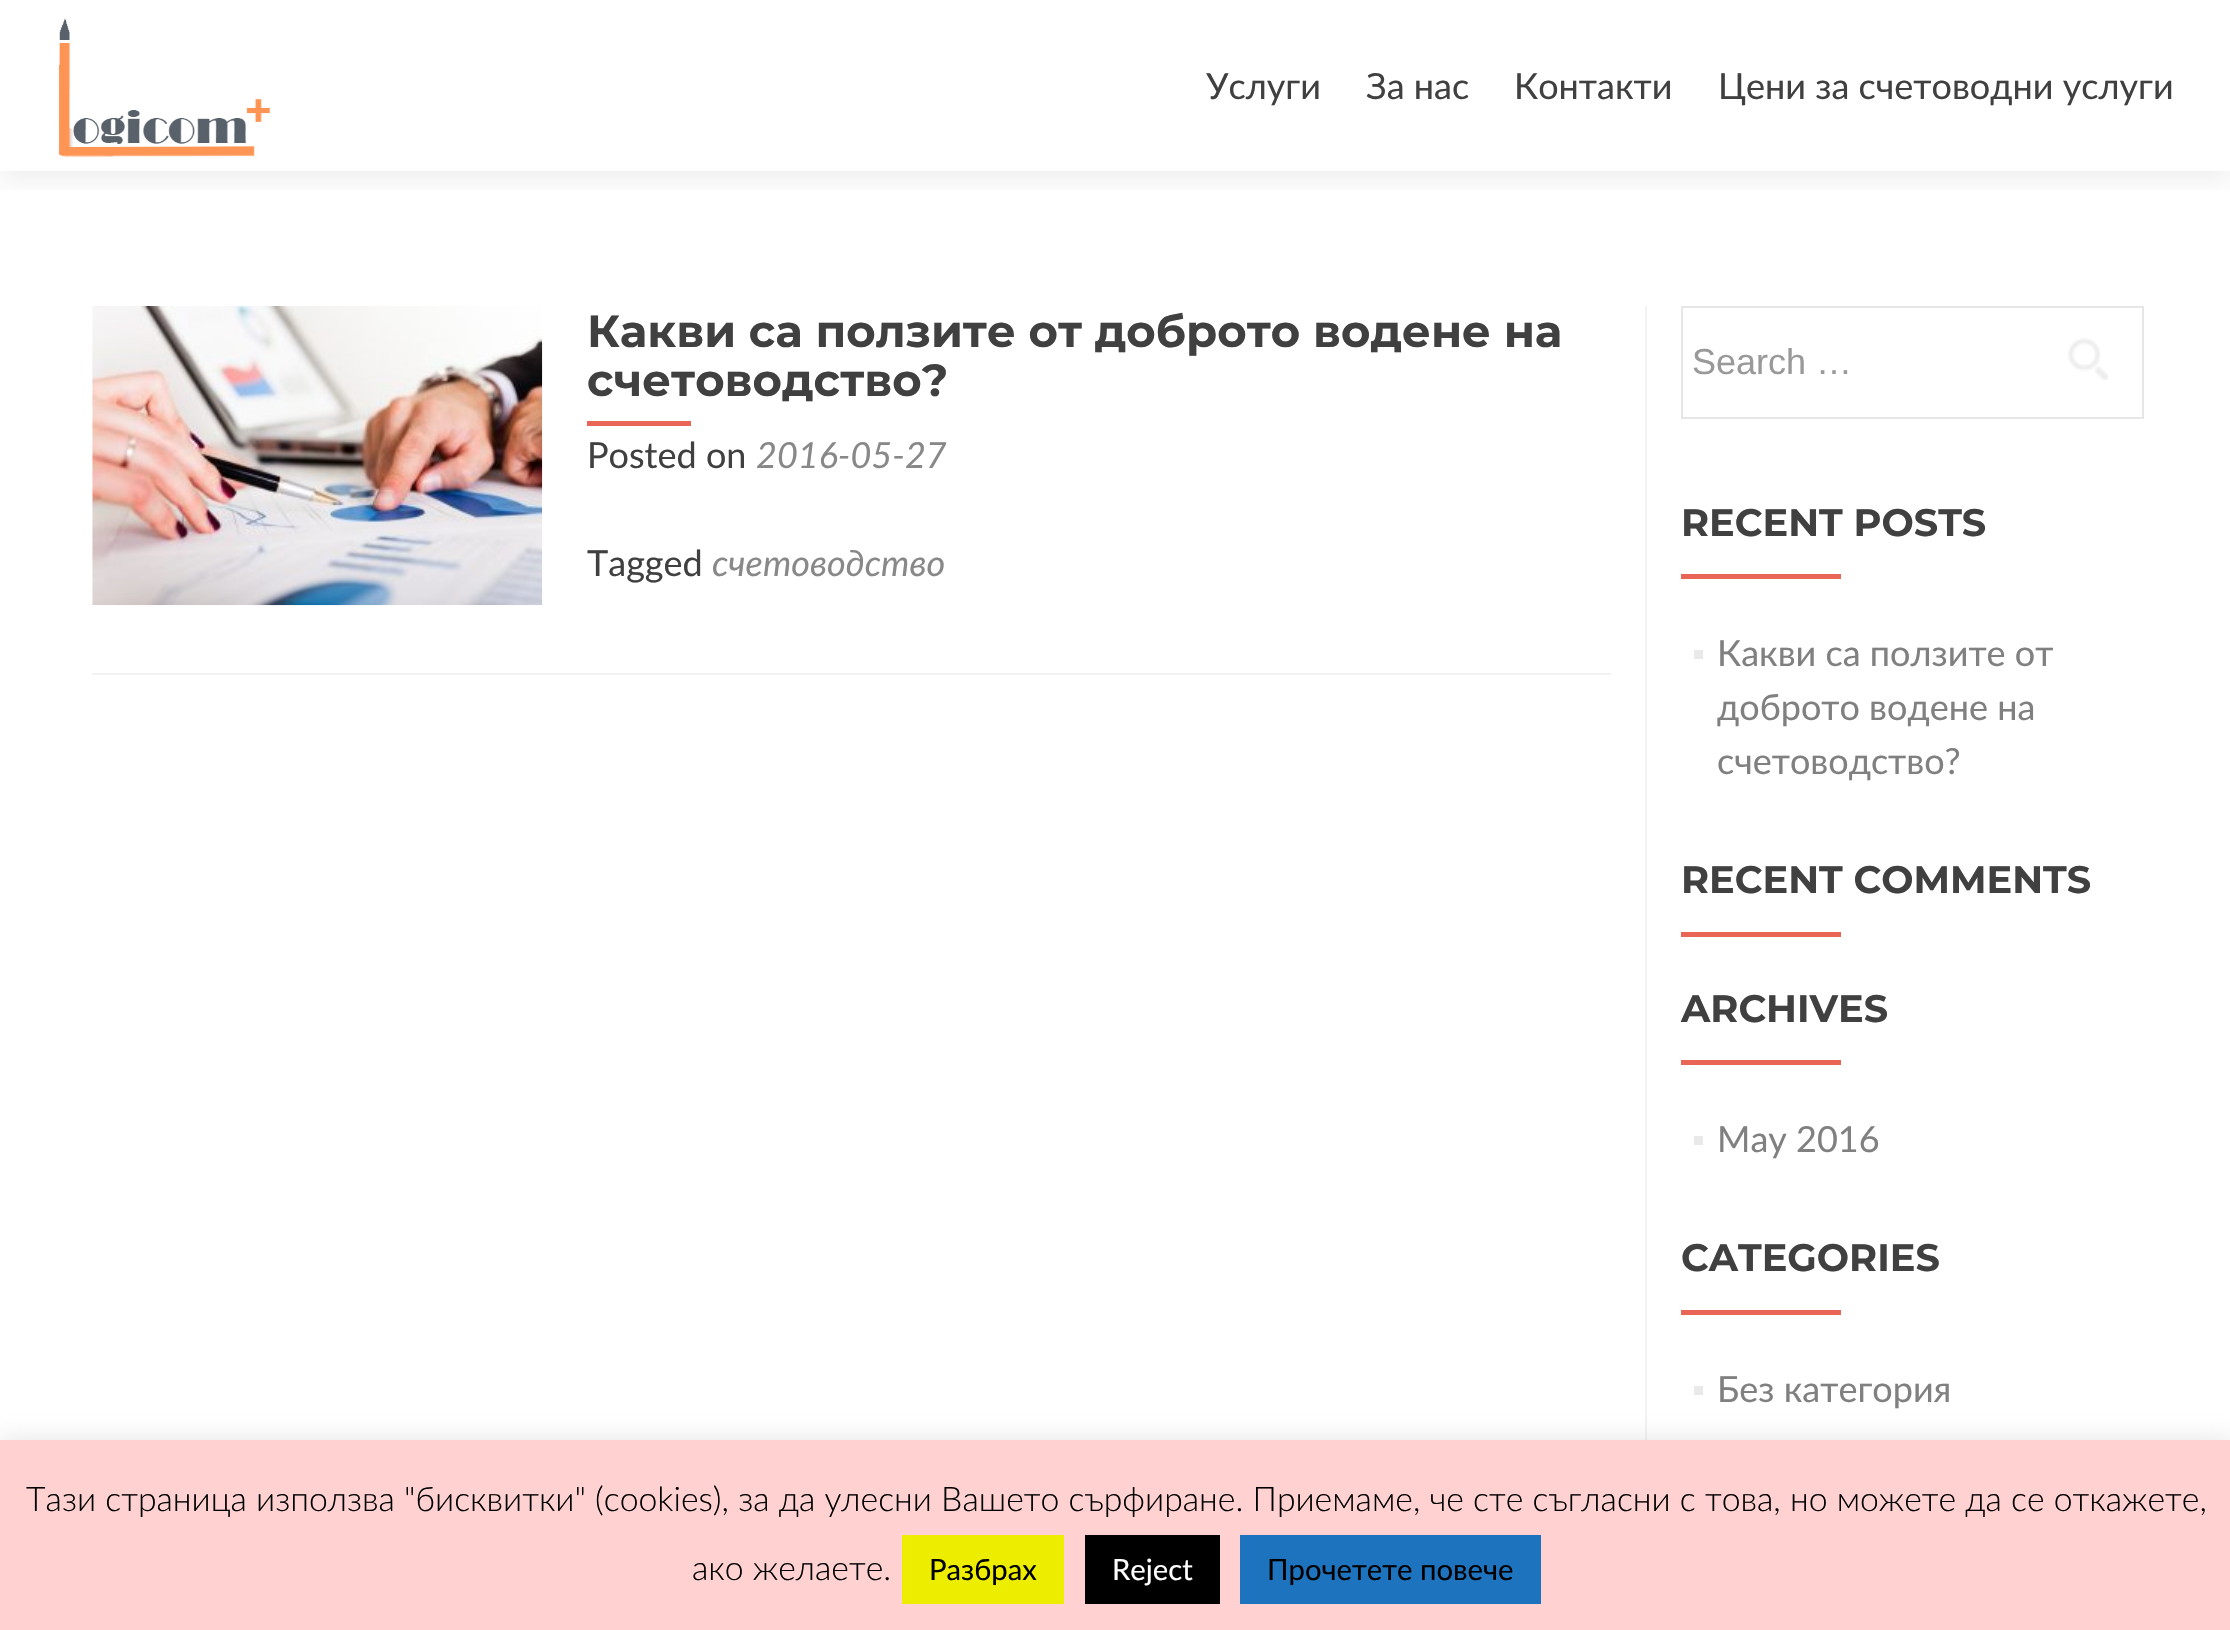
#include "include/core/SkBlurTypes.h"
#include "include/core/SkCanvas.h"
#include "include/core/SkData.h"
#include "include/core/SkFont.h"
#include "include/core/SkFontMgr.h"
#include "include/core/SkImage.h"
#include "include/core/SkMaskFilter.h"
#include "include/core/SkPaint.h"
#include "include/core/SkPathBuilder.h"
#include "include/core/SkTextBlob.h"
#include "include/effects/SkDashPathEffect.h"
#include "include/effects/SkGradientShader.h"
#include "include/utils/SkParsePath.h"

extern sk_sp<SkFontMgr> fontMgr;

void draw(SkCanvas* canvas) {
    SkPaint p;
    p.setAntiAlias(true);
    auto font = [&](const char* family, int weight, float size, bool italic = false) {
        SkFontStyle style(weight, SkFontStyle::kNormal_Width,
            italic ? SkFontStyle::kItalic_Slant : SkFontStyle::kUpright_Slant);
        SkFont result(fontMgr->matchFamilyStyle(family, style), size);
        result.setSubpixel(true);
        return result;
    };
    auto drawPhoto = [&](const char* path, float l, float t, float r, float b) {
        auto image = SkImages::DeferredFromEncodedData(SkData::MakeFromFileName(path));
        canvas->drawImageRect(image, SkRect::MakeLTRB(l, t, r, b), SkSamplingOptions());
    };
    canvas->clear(0xFFFFFFFF);
    canvas->save();
    canvas->clipRect(SkRect::MakeLTRB(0, 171, 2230, 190));
    p.setColor(0x14323232);
    p.setMaskFilter(SkMaskFilter::MakeBlur(kNormal_SkBlurStyle, 12.5f));
    canvas->drawRect(SkRect::MakeLTRB(0, 11, 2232, 182), p);
    p.setMaskFilter(nullptr);
    canvas->restore();
    drawPhoto("media/1.png", 58, 18, 270, 158);
    auto font1 = font("Lato", 400, 36);
    p.setColor(0xFF404040);
    {
        const struct { const char* s; float x, y; } items[] = {
            {"Услуги", 1206, 99},
            {"За нас", 1366, 99},
            {"Контакти", 1514, 99},
            {"Цени за счетоводни услуги", 1718, 99},
        };
        for (auto [s, x, y] : items) {
            canvas->drawString(s, x, y, font1, p);
        }
    }
    p.setColor(0xFFF2F2F2);
    canvas->drawRect(SkRect::MakeLTRB(92, 673, 1611, 675), p);
    drawPhoto("media/2.png", 92, 306, 543, 606);
    auto font2 = font("Montserrat", 700, 45);
    p.setColor(0xFF404040);
    canvas->drawString("Какви са ползите от доброто водене на", 587, 347, font2, p);
    canvas->drawString("счетоводство?", 587, 396, font2, p);
    p.setColor(0xFFE96656);
    canvas->drawRect(SkRect::MakeLTRB(587, 421, 691, 426), p);
    p.setColor(0xFF404040);
    canvas->drawString("Posted on", 587, 468, font1, p);
    auto font3 = font("Lato", 400, 36, true);
    p.setColor(0xFF888888);
    canvas->drawString("2016-05-27", 756, 468, font3, p);
    p.setColor(0xFF404040);
    canvas->drawString("Tagged", 587, 576, font1, p);
    p.setColor(0xFF888888);
    canvas->drawString("счетоводство", 712, 576, font3, p);
    p.setColor(0xFFF2F2F2);
    canvas->drawRect(SkRect::MakeLTRB(1645, 306, 1647, 1440), p);
    p.setStyle(SkPaint::kStroke_Style);
    p.setStrokeWidth(2);
    p.setColor(0xFFE6E6E6);
    canvas->drawRect(SkRect::MakeLTRB(1682, 307, 2143, 418), p);
    auto font4 = font("Liberation Sans", 400, 36);
    p.setStyle(SkPaint::kFill_Style);
    p.setColor(0xFF999999);
    canvas->drawString("Search …", 1692, 374, font4, p);
    drawPhoto("media/3.png", 2068, 337, 2109, 380);
    auto font5 = font("Montserrat", 700, 38.25f);
    p.setColor(0xFF404040);
    canvas->drawString("RECENT POSTS", 1681, 536, font5, p);
    p.setColor(0xFFE96656);
    canvas->drawRect(SkRect::MakeLTRB(1681, 574, 1841, 579), p);
    p.setColor(0xFFE9E9E9);
    canvas->drawRect(SkRect::MakeLTRB(1694, 650, 1703, 659), p);
    p.setColor(0xFF808080);
    {
        const struct { const char* s; float x, y; } items[] = {
            {"Какви са ползите от", 1717, 666},
            {"доброто водене на", 1717, 720},
            {"счетоводство?", 1717, 774},
        };
        for (auto [s, x, y] : items) {
            canvas->drawString(s, x, y, font1, p);
        }
    }
    p.setColor(0xFF404040);
    canvas->drawString("RECENT COMMENTS", 1681, 893, font5, p);
    p.setColor(0xFFE96656);
    canvas->drawRect(SkRect::MakeLTRB(1681, 932, 1841, 937), p);
    p.setColor(0xFF404040);
    canvas->drawString("ARCHIVES", 1681, 1022, font5, p);
    p.setColor(0xFFE96656);
    canvas->drawRect(SkRect::MakeLTRB(1681, 1060, 1841, 1065), p);
    p.setColor(0xFFE9E9E9);
    canvas->drawRect(SkRect::MakeLTRB(1694, 1136, 1703, 1145), p);
    p.setColor(0xFF808080);
    canvas->drawString("May 2016", 1717, 1152, font1, p);
    p.setColor(0xFF404040);
    canvas->drawString("CATEGORIES", 1681, 1271, font5, p);
    p.setColor(0xFFE96656);
    canvas->drawRect(SkRect::MakeLTRB(1681, 1310, 1841, 1315), p);
    p.setColor(0xFFE9E9E9);
    canvas->drawRect(SkRect::MakeLTRB(1694, 1386, 1703, 1395), p);
    p.setColor(0xFF808080);
    canvas->drawString("Без категория", 1717, 1402, font1, p);
    p.setColor(0x4DACABAB);
    p.setMaskFilter(SkMaskFilter::MakeBlur(kNormal_SkBlurStyle, 11));
    canvas->drawRect(SkRect::MakeLTRB(0, 1438, 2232, 1629), p);
    p.setMaskFilter(nullptr);
    p.setColor(0xFFFFD1D1);
    canvas->drawRect(SkRect::MakeLTRB(0, 1440, 2230, 1630), p);
    auto font6 = font("Lato", 300, 33.75f);
    p.setColor(0xFF000000);
    canvas->drawString("Тази страница използва \"бисквитки\" (cookies), за да улесни Вашето сърфиране. Приемаме, че сте съгласни с това, но можете да се откажете,", 26, 1511, font6, p);
    canvas->drawString("ако желаете.", 692, 1580, font6, p);
    p.setColor(0xFFEDED00);
    canvas->drawRect(SkRect::MakeLTRB(902, 1535, 1064, 1604), p);
    auto font7 = font("Lato", 400, 29.25f);
    p.setColor(0xFF000000);
    canvas->drawString("Разбрах", 929, 1580, font7, p);
    canvas->drawRect(SkRect::MakeLTRB(1085, 1535, 1220, 1604), p);
    p.setColor(0xFFFFFFFF);
    canvas->drawString("Reject", 1112, 1580, font7, p);
    p.setColor(0xFF1E73BE);
    canvas->drawRect(SkRect::MakeLTRB(1240, 1535, 1541, 1604), p);
    p.setColor(0xFF000000);
    canvas->drawString("Прочетете повече", 1267, 1580, font7, p);
}
